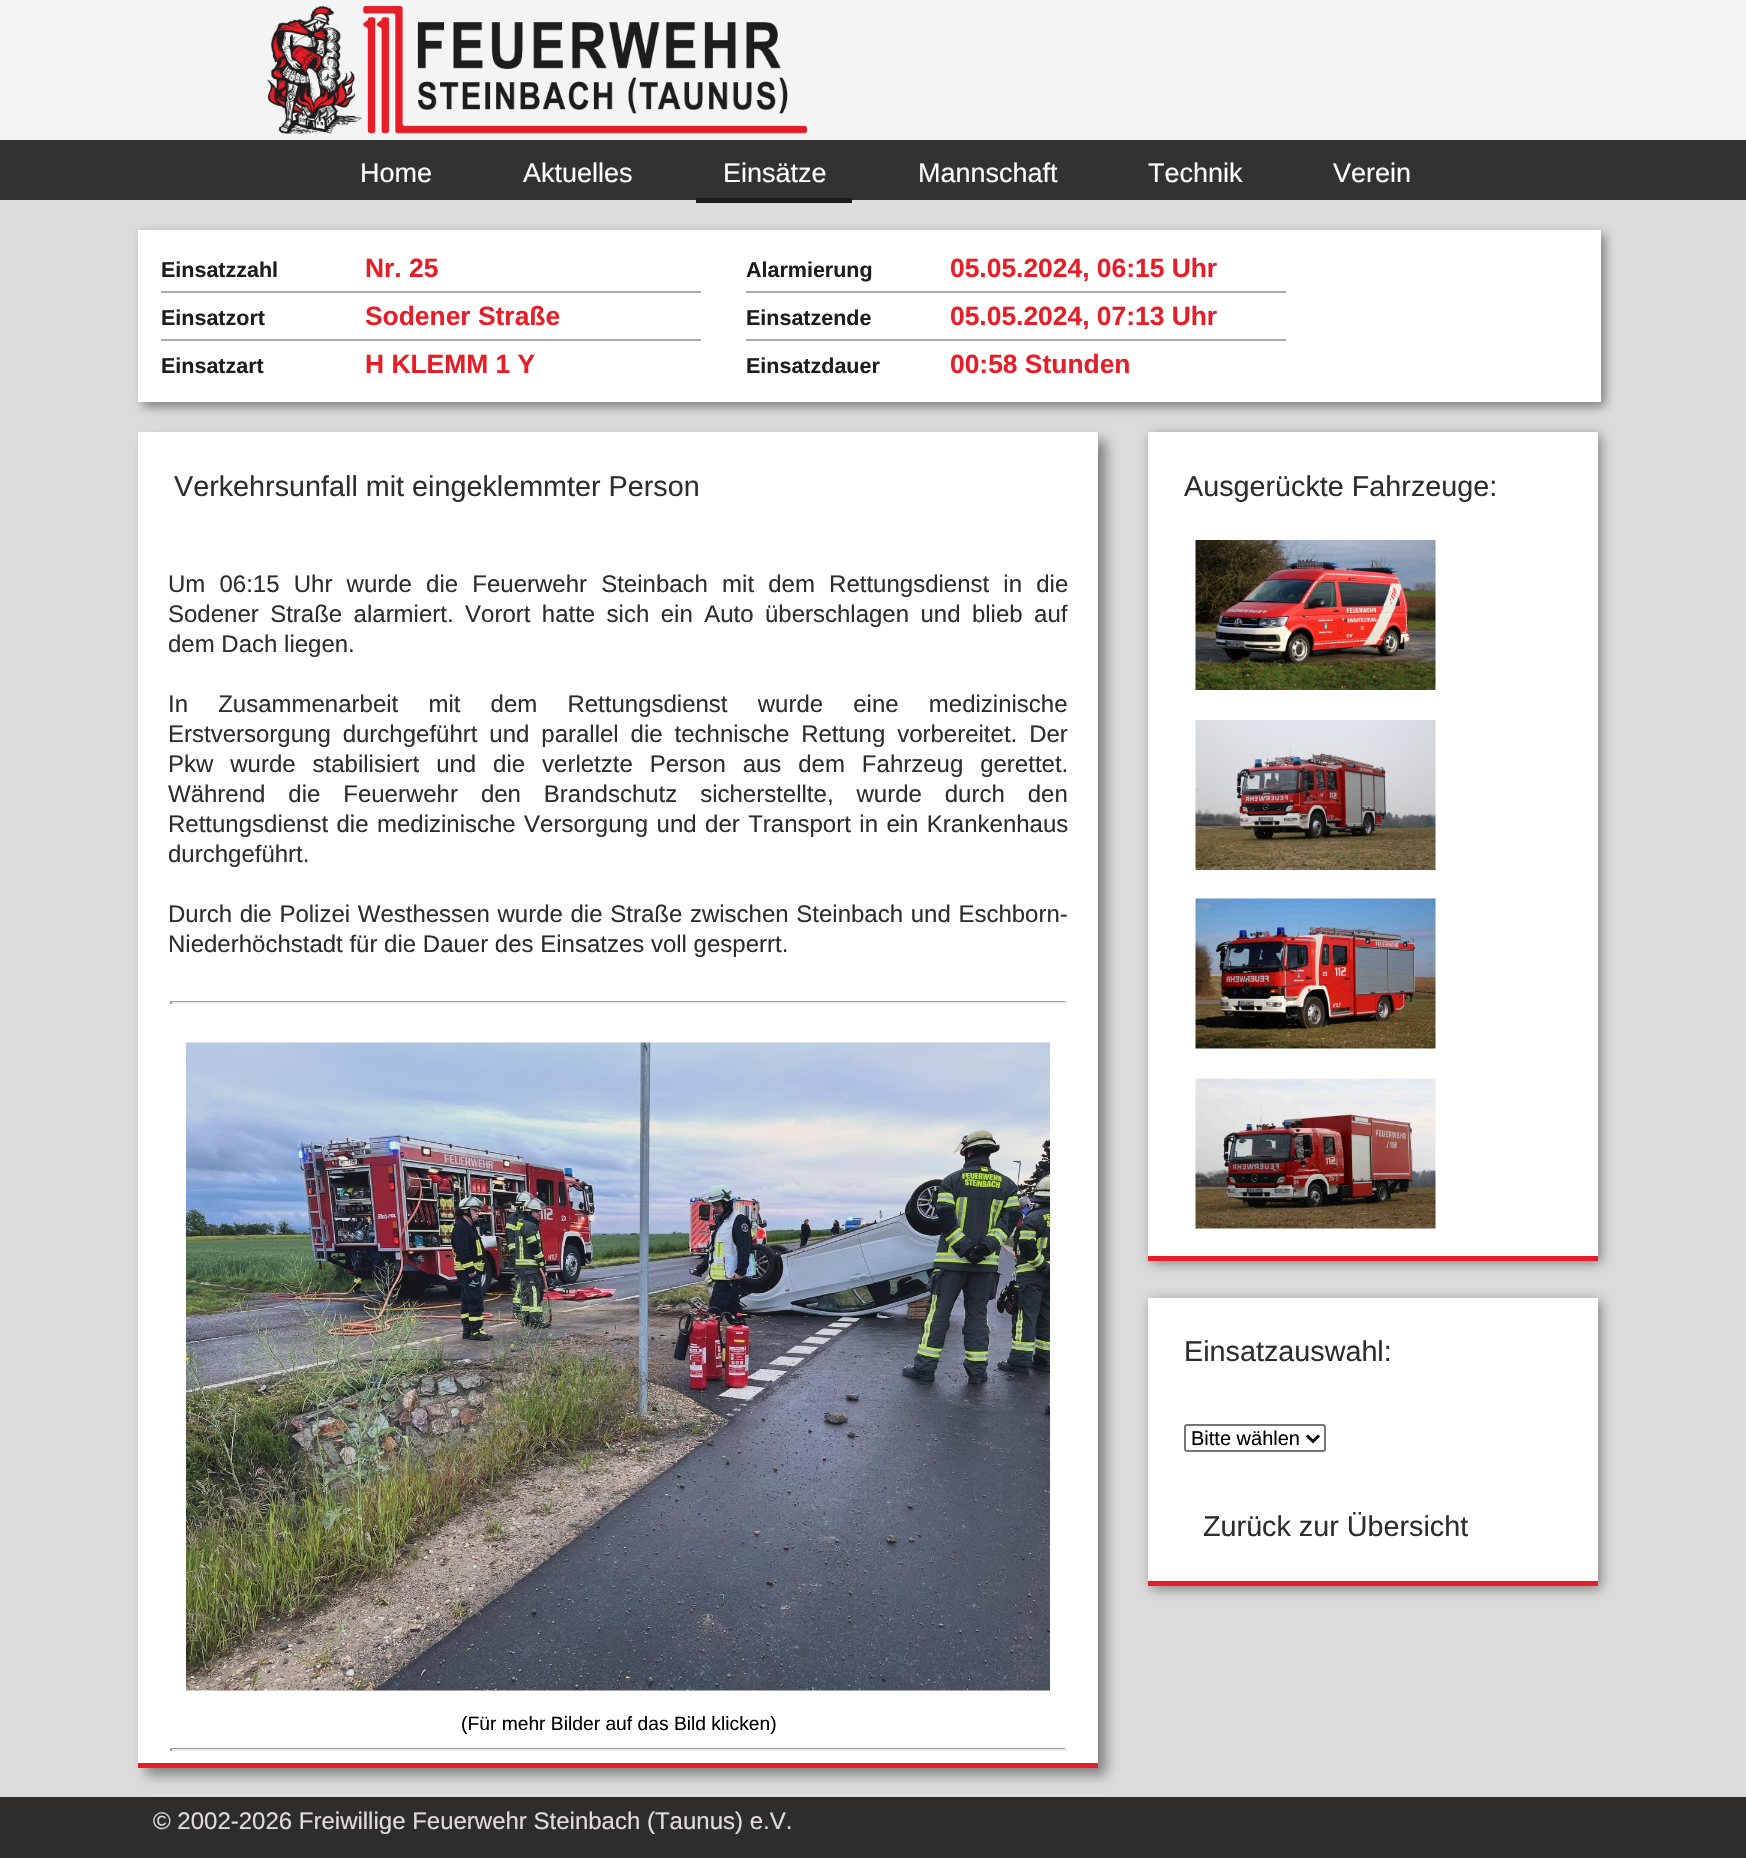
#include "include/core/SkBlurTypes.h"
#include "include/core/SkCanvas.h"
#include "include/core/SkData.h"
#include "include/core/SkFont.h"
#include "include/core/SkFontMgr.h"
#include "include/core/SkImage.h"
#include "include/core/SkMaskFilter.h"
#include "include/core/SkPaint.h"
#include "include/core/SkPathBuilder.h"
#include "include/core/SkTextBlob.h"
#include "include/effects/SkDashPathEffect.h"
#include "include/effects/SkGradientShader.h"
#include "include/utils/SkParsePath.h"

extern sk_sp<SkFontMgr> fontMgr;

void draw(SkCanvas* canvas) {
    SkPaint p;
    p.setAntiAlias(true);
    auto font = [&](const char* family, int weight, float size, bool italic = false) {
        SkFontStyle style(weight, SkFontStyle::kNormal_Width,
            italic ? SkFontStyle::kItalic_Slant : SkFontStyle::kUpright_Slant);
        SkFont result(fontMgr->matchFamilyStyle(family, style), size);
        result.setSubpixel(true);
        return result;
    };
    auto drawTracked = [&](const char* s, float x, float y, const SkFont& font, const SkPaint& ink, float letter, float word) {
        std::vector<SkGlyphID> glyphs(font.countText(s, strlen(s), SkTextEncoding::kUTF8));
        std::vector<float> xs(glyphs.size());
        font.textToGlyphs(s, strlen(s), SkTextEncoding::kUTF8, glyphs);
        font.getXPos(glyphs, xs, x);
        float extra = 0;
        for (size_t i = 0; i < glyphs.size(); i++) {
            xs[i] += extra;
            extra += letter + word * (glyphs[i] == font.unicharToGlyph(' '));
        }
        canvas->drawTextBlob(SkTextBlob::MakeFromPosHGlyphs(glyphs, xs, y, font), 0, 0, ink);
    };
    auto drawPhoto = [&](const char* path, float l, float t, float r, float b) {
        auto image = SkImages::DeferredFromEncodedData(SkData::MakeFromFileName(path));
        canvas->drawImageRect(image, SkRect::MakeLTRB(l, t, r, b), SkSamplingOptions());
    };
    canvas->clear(0xFFDCDCDC);
    p.setColor(0xFFF4F4F4);
    canvas->drawRect(SkRect::MakeLTRB(0, 0, 1746, 140), p);
    drawPhoto("media/1.png", 267, 6, 807, 134);
    p.setColor(0xFF333232);
    canvas->drawRect(SkRect::MakeLTRB(0, 140, 1746, 200), p);
    auto font1 = font("Liberation Sans", 400, 27);
    p.setColor(0xFFFFFFFF);
    {
        const struct { const char* s; float x, y; } items[] = {
            {"Home", 360, 182},
            {"Aktuelles", 523, 182},
            {"Einsätze", 723, 182},
        };
        for (auto [s, x, y] : items) {
            canvas->drawString(s, x, y, font1, p);
        }
    }
    p.setColor(0xFF1D1D1D);
    canvas->drawRect(SkRect::MakeLTRB(696, 198, 852, 203), p);
    p.setColor(0xFFFFFFFF);
    {
        const struct { const char* s; float x, y; } items[] = {
            {"Mannschaft", 918, 182},
            {"Technik", 1148, 182},
            {"Verein", 1333, 182},
        };
        for (auto [s, x, y] : items) {
            canvas->drawString(s, x, y, font1, p);
        }
    }
    p.setColor(0xFF808080);
    p.setMaskFilter(SkMaskFilter::MakeBlur(kNormal_SkBlurStyle, 5));
    canvas->drawRect(SkRect::MakeLTRB(143, 234, 1605, 407), p);
    p.setMaskFilter(nullptr);
    p.setColor(0xFFFFFFFF);
    canvas->drawRect(SkRect::MakeLTRB(138, 230, 1601, 402), p);
    p.setColor(0xFFABABAB);
    canvas->drawRect(SkRect::MakeLTRB(161, 291, 701, 293), p);
    auto font2 = font("Liberation Sans", 700, 21.5f);
    p.setColor(0xFF1D1D1D);
    canvas->drawString("Einsatzzahl", 161, 277, font2, p);
    auto font3 = font("Liberation Sans", 700, 26.4f);
    p.setColor(0xFFE61E28);
    canvas->drawString("Nr. 25", 365, 277, font3, p);
    p.setColor(0xFFABABAB);
    canvas->drawRect(SkRect::MakeLTRB(161, 339, 701, 341), p);
    p.setColor(0xFF1D1D1D);
    canvas->drawString("Einsatzort", 161, 325, font2, p);
    p.setColor(0xFFE61E28);
    canvas->drawString("Sodener Straße", 365, 325, font3, p);
    p.setColor(0xFF1D1D1D);
    canvas->drawString("Einsatzart", 161, 373, font2, p);
    p.setColor(0xFFE61E28);
    canvas->drawString("H KLEMM 1 Y", 365, 373, font3, p);
    p.setColor(0xFFABABAB);
    canvas->drawRect(SkRect::MakeLTRB(746, 291, 1286, 293), p);
    p.setColor(0xFF1D1D1D);
    canvas->drawString("Alarmierung", 746, 277, font2, p);
    p.setColor(0xFFE61E28);
    canvas->drawString("05.05.2024, 06:15 Uhr", 950, 277, font3, p);
    p.setColor(0xFFABABAB);
    canvas->drawRect(SkRect::MakeLTRB(746, 339, 1286, 341), p);
    p.setColor(0xFF1D1D1D);
    canvas->drawString("Einsatzende", 746, 325, font2, p);
    p.setColor(0xFFE61E28);
    canvas->drawString("05.05.2024, 07:13 Uhr", 950, 325, font3, p);
    p.setColor(0xFF1D1D1D);
    canvas->drawString("Einsatzdauer", 746, 373, font2, p);
    p.setColor(0xFFE61E28);
    canvas->drawString("00:58 Stunden", 950, 373, font3, p);
    p.setColor(0xFF808080);
    p.setMaskFilter(SkMaskFilter::MakeBlur(kNormal_SkBlurStyle, 6));
    canvas->drawRect(SkRect::MakeLTRB(146, 440, 1106, 1775), p);
    p.setMaskFilter(nullptr);
    p.setColor(0xFFFFFFFF);
    canvas->drawRect(SkRect::MakeLTRB(138, 432, 1098, 1763), p);
    p.setColor(0xFFE61E28);
    canvas->drawRect(SkRect::MakeLTRB(138, 1763, 1098, 1768), p);
    auto font4 = font("Liberation Sans", 400, 28.75f);
    p.setColor(0xFF2F2D2C);
    canvas->drawString("Verkehrsunfall mit eingeklemmter Person", 174, 496, font4, p);
    auto font5 = font("Liberation Sans", 400, 24);
    drawTracked("Um 06:15 Uhr wurde die Feuerwehr Steinbach mit dem Rettungsdienst in die", 168, 592, font5, p, 0, 7.5f);
    drawTracked("Sodener Straße alarmiert. Vorort hatte sich ein Auto überschlagen und blieb auf", 168, 622, font5, p, 0, 4.75f);
    canvas->drawString("dem Dach liegen.", 168, 652, font5, p);
    drawTracked("In Zusammenarbeit mit dem Rettungsdienst wurde eine medizinische", 168, 712, font5, p, 0, 23.5f);
    drawTracked("Erstversorgung durchgeführt und parallel die technische Rettung vorbereitet. Der", 168, 742, font5, p, 0, 5.25f);
    drawTracked("Pkw wurde stabilisiert und die verletzte Person aus dem Fahrzeug gerettet.", 168, 772, font5, p, 0, 10.25f);
    drawTracked("Während die Feuerwehr den Brandschutz sicherstellte, wurde durch den", 168, 802, font5, p, 0, 16.25f);
    drawTracked("Rettungsdienst die medizinische Versorgung und der Transport in ein Krankenhaus", 168, 832, font5, p, 0, 1.75f);
    canvas->drawString("durchgeführt.", 168, 862, font5, p);
    drawTracked("Durch die Polizei Westhessen wurde die Straße zwischen Steinbach und Eschborn-", 168, 922, font5, p, 0, 1);
    canvas->drawString("Niederhöchstadt für die Dauer des Einsatzes voll gesperrt.", 168, 952, font5, p);
    {
        const struct { float l, t, r, b; SkColor color; } items[] = {
            {170, 1001, 1067, 1002, 0xFF9F9F9F},
            {1065, 1001, 1067, 1004, 0xFFEEEEEE},
            {170, 1002, 1067, 1004, 0xFFEEEEEE},
            {170, 1001, 172, 1004, 0xFF9F9F9F},
        };
        for (auto [l, t, r, b, color] : items) {
            p.setColor(color);
            canvas->drawRect(SkRect::MakeLTRB(l, t, r, b), p);
        }
    }
    drawPhoto("media/2.png", 186, 1042, 1050, 1691);
    auto font6 = font("Liberation Sans", 400, 19.25f);
    p.setColor(0xFF000000);
    canvas->drawString("(Für mehr Bilder auf das Bild klicken)", 461, 1730, font6, p);
    {
        const struct { float l, t, r, b; SkColor color; } items[] = {
            {170, 1748, 1067, 1749, 0xFF9F9F9F},
            {1065, 1748, 1067, 1751, 0xFFEEEEEE},
            {170, 1749, 1067, 1751, 0xFFEEEEEE},
            {170, 1748, 172, 1751, 0xFF9F9F9F},
        };
        for (auto [l, t, r, b, color] : items) {
            p.setColor(color);
            canvas->drawRect(SkRect::MakeLTRB(l, t, r, b), p);
        }
    }
    p.setColor(0xFF808080);
    p.setMaskFilter(SkMaskFilter::MakeBlur(kNormal_SkBlurStyle, 6));
    canvas->drawRect(SkRect::MakeLTRB(1151, 435, 1601, 1263), p);
    p.setMaskFilter(nullptr);
    p.setColor(0xFFFFFFFF);
    canvas->drawRect(SkRect::MakeLTRB(1148, 432, 1598, 1256), p);
    p.setColor(0xFFE61E28);
    canvas->drawRect(SkRect::MakeLTRB(1148, 1256, 1598, 1261), p);
    p.setColor(0xFF2F2D2C);
    canvas->drawString("Ausgerückte Fahrzeuge:", 1184, 496, font4, p);
    drawPhoto("media/3.png", 1195, 540, 1436, 690);
    drawPhoto("media/4.png", 1195, 720, 1436, 870);
    drawPhoto("media/5.png", 1195, 898, 1436, 1049);
    drawPhoto("media/6.png", 1195, 1078, 1436, 1229);
    p.setColor(0xFF808080);
    p.setMaskFilter(SkMaskFilter::MakeBlur(kNormal_SkBlurStyle, 6));
    canvas->drawRect(SkRect::MakeLTRB(1151, 1301, 1601, 1589), p);
    p.setMaskFilter(nullptr);
    p.setColor(0xFFFFFFFF);
    canvas->drawRect(SkRect::MakeLTRB(1148, 1298, 1598, 1581), p);
    p.setColor(0xFFE61E28);
    canvas->drawRect(SkRect::MakeLTRB(1148, 1581, 1598, 1586), p);
    p.setColor(0xFF2F2D2C);
    canvas->drawString("Einsatzauswahl:", 1184, 1361, font4, p);
    p.setStyle(SkPaint::kStroke_Style);
    p.setStrokeWidth(2);
    p.setColor(0xFF767676);
    canvas->drawRoundRect(SkRect::MakeLTRB(1185, 1425, 1325, 1451), 2, 2, p);
    p.setStrokeWidth(3);
    p.setColor(0xFF000000);
    canvas->drawPath(SkPathBuilder().moveTo(1307, 1435.5f).lineTo(1313, 1441.5f).lineTo(1319, 1435.5f).detach(), p);
    auto font7 = font("Liberation Sans", 400, 20);
    p.setStyle(SkPaint::kFill_Style);
    canvas->drawString("Bitte wählen", 1191, 1445, font7, p);
    p.setColor(0xFF2F2D2C);
    canvas->drawString("Zurück zur Übersicht", 1203, 1536, font4, p);
    p.setColor(0xFF2F2C2C);
    canvas->drawRect(SkRect::MakeLTRB(0, 1797, 1746, 1858), p);
    p.setColor(0xFFE2DBDB);
    canvas->drawString("© 2002-2026 Freiwillige Feuerwehr Steinbach (Taunus) e.V.", 153, 1829, font5, p);
}
